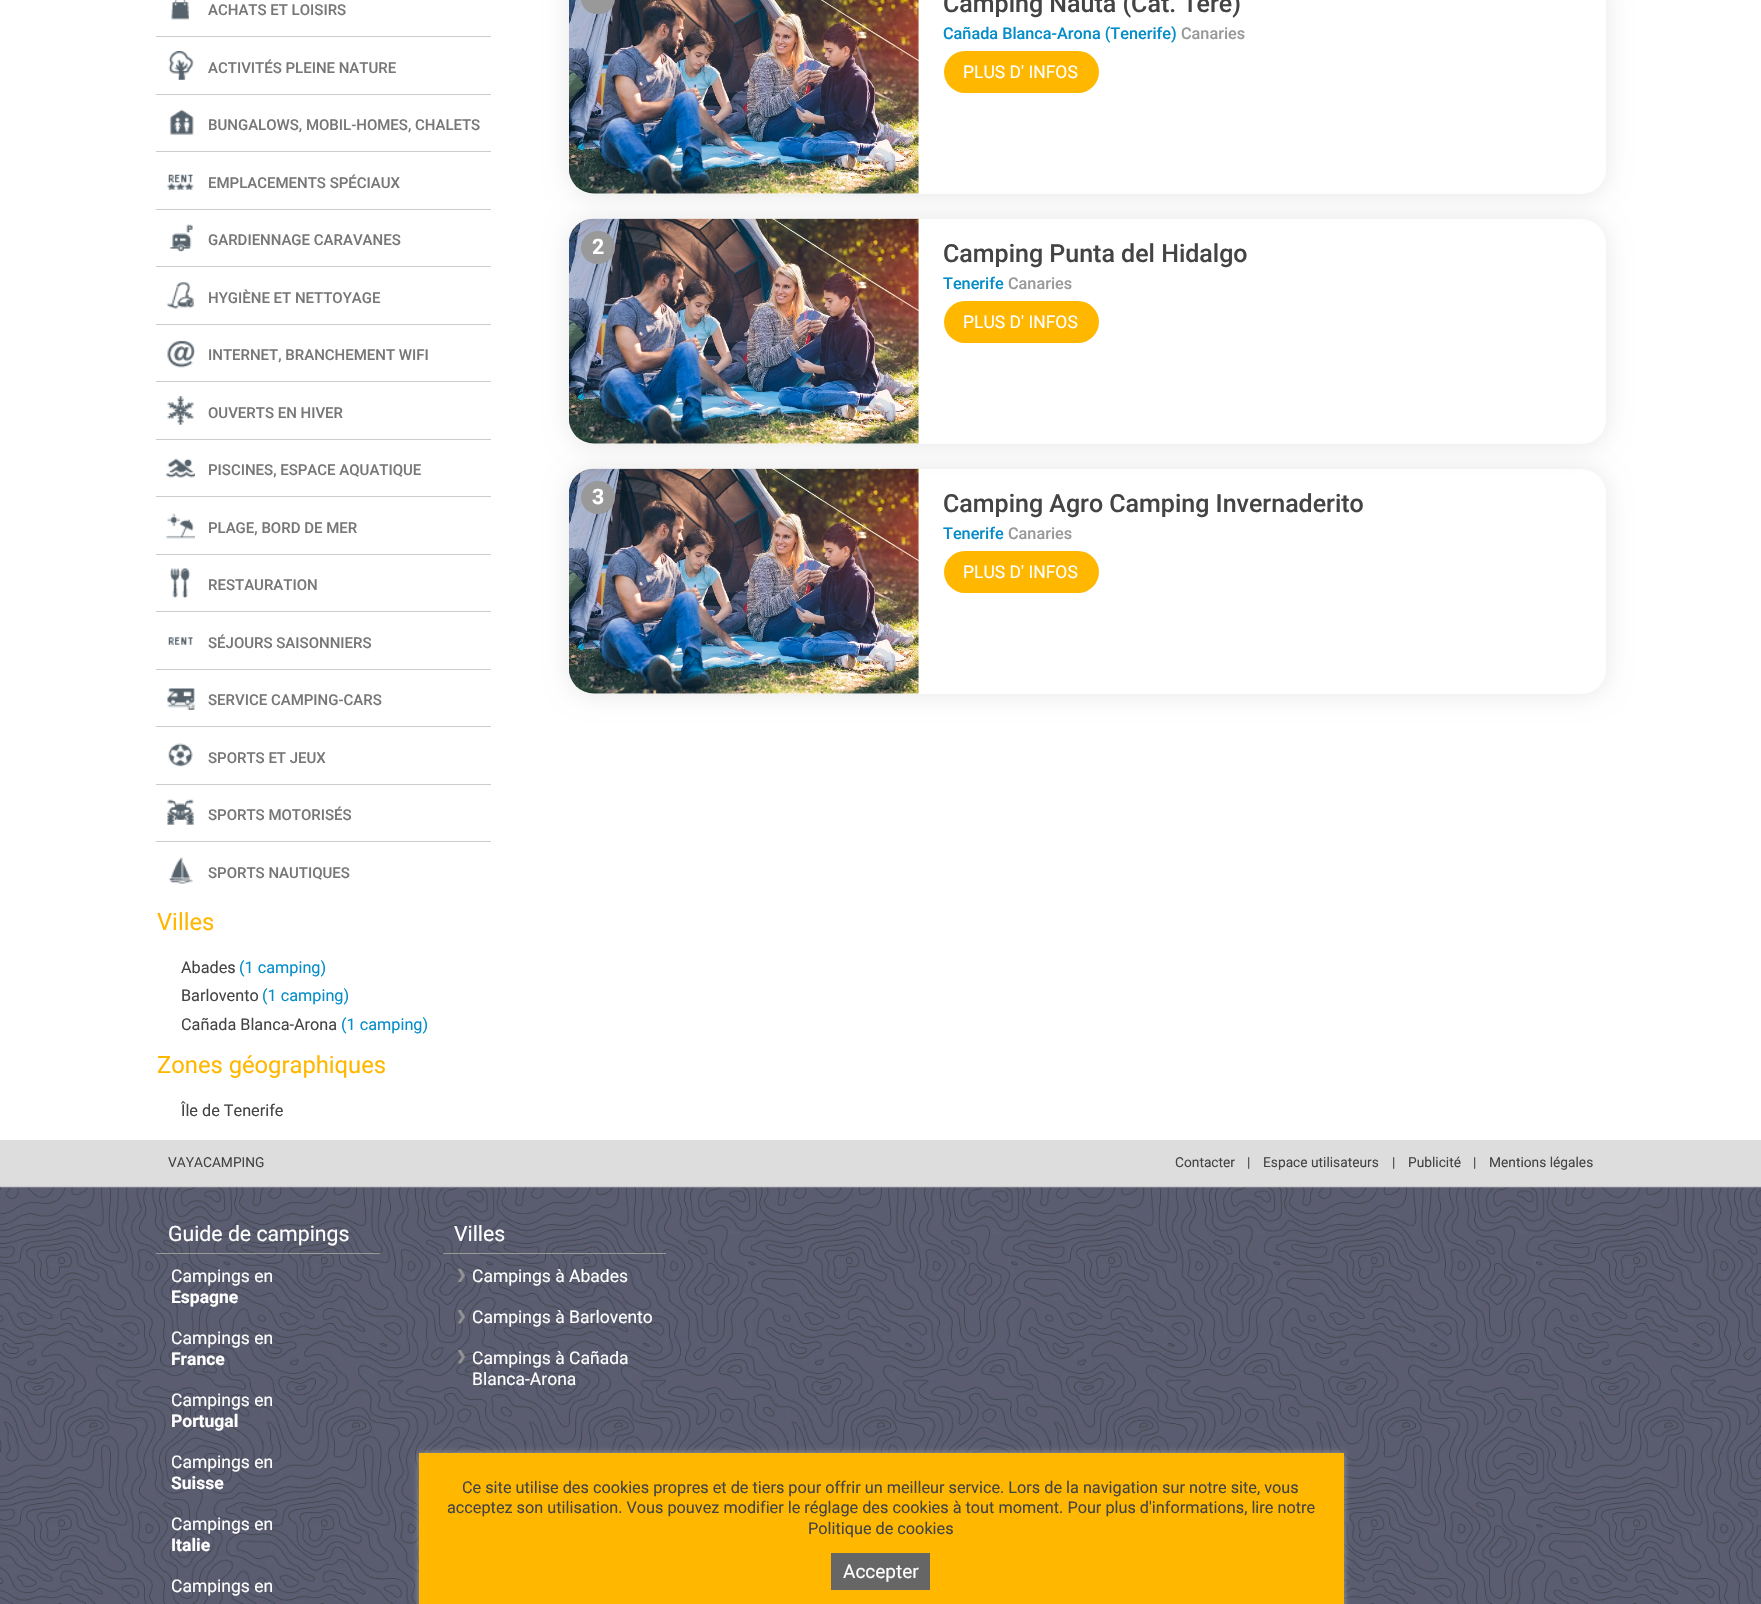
#include "include/core/SkBlurTypes.h"
#include "include/core/SkCanvas.h"
#include "include/core/SkData.h"
#include "include/core/SkFont.h"
#include "include/core/SkFontMgr.h"
#include "include/core/SkImage.h"
#include "include/core/SkMaskFilter.h"
#include "include/core/SkPaint.h"
#include "include/core/SkPathBuilder.h"
#include "include/core/SkTextBlob.h"
#include "include/effects/SkDashPathEffect.h"
#include "include/effects/SkGradientShader.h"
#include "include/utils/SkParsePath.h"

extern sk_sp<SkFontMgr> fontMgr;

void draw(SkCanvas* canvas) {
    SkPaint p;
    p.setAntiAlias(true);
    auto font = [&](const char* family, int weight, float size, bool italic = false) {
        SkFontStyle style(weight, SkFontStyle::kNormal_Width,
            italic ? SkFontStyle::kItalic_Slant : SkFontStyle::kUpright_Slant);
        SkFont result(fontMgr->matchFamilyStyle(family, style), size);
        result.setSubpixel(true);
        return result;
    };
    auto drawPhoto = [&](const char* path, float l, float t, float r, float b) {
        auto image = SkImages::DeferredFromEncodedData(SkData::MakeFromFileName(path));
        canvas->drawImageRect(image, SkRect::MakeLTRB(l, t, r, b), SkSamplingOptions());
    };
    canvas->clear(0xFFFFFFFF);
    p.setColor(0xFFCCCCCC);
    canvas->drawRect(SkRect::MakeLTRB(156, 36, 491, 37), p);
    drawPhoto("media/1.png", 171, 0, 189, 20);
    auto font1 = font("Roboto", 500, 15);
    p.setColor(0xFF777777);
    canvas->drawString("ACHATS ET LOISIRS", 208, 15, font1, p);
    p.setColor(0xFFCCCCCC);
    canvas->drawRect(SkRect::MakeLTRB(156, 94, 491, 95), p);
    drawPhoto("media/2.png", 168, 51, 194, 80);
    p.setColor(0xFF777777);
    canvas->drawString("ACTIVITÉS PLEINE NATURE", 208, 73, font1, p);
    p.setColor(0xFFCCCCCC);
    canvas->drawRect(SkRect::MakeLTRB(156, 151, 491, 152), p);
    drawPhoto("media/3.png", 169, 109, 194, 135);
    p.setColor(0xFF777777);
    canvas->drawString("BUNGALOWS, MOBIL-HOMES, CHALETS", 208, 130, font1, p);
    p.setColor(0xFFCCCCCC);
    canvas->drawRect(SkRect::MakeLTRB(156, 209, 491, 210), p);
    drawPhoto("media/4.png", 167, 174, 194, 190);
    p.setColor(0xFF777777);
    canvas->drawString("EMPLACEMENTS SPÉCIAUX", 208, 188, font1, p);
    p.setColor(0xFFCCCCCC);
    canvas->drawRect(SkRect::MakeLTRB(156, 266, 491, 267), p);
    drawPhoto("media/5.png", 169, 224, 193, 252);
    p.setColor(0xFF777777);
    canvas->drawString("GARDIENNAGE CARAVANES", 208, 245, font1, p);
    p.setColor(0xFFCCCCCC);
    canvas->drawRect(SkRect::MakeLTRB(156, 324, 491, 325), p);
    drawPhoto("media/6.png", 167, 282, 194, 309);
    p.setColor(0xFF777777);
    canvas->drawString("HYGIÈNE ET NETTOYAGE", 208, 303, font1, p);
    p.setColor(0xFFCCCCCC);
    canvas->drawRect(SkRect::MakeLTRB(156, 381, 491, 382), p);
    drawPhoto("media/7.png", 167, 340, 195, 368);
    p.setColor(0xFF777777);
    canvas->drawString("INTERNET, BRANCHEMENT WIFI", 208, 360, font1, p);
    p.setColor(0xFFCCCCCC);
    canvas->drawRect(SkRect::MakeLTRB(156, 439, 491, 440), p);
    drawPhoto("media/8.png", 167, 396, 194, 425);
    p.setColor(0xFF777777);
    canvas->drawString("OUVERTS EN HIVER", 208, 418, font1, p);
    p.setColor(0xFFCCCCCC);
    canvas->drawRect(SkRect::MakeLTRB(156, 496, 491, 497), p);
    drawPhoto("media/9.png", 166, 458, 195, 478);
    p.setColor(0xFF777777);
    canvas->drawString("PISCINES, ESPACE AQUATIQUE", 208, 475, font1, p);
    p.setColor(0xFFCCCCCC);
    canvas->drawRect(SkRect::MakeLTRB(156, 554, 491, 555), p);
    drawPhoto("media/10.png", 166, 513, 195, 539);
    p.setColor(0xFF777777);
    canvas->drawString("PLAGE, BORD DE MER", 208, 533, font1, p);
    p.setColor(0xFFCCCCCC);
    canvas->drawRect(SkRect::MakeLTRB(156, 611, 491, 612), p);
    drawPhoto("media/11.png", 170, 568, 191, 598);
    p.setColor(0xFF777777);
    canvas->drawString("RESTAURATION", 208, 590, font1, p);
    p.setColor(0xFFCCCCCC);
    canvas->drawRect(SkRect::MakeLTRB(156, 669, 491, 670), p);
    drawPhoto("media/12.png", 168, 637, 193, 645);
    p.setColor(0xFF777777);
    canvas->drawString("SÉJOURS SAISONNIERS", 208, 648, font1, p);
    p.setColor(0xFFCCCCCC);
    canvas->drawRect(SkRect::MakeLTRB(156, 726, 491, 727), p);
    drawPhoto("media/13.png", 167, 688, 195, 710);
    p.setColor(0xFF777777);
    canvas->drawString("SERVICE CAMPING-CARS", 208, 705, font1, p);
    p.setColor(0xFFCCCCCC);
    canvas->drawRect(SkRect::MakeLTRB(156, 784, 491, 785), p);
    drawPhoto("media/14.png", 168, 743, 193, 767);
    p.setColor(0xFF777777);
    canvas->drawString("SPORTS ET JEUX", 208, 763, font1, p);
    p.setColor(0xFFCCCCCC);
    canvas->drawRect(SkRect::MakeLTRB(156, 841, 491, 842), p);
    drawPhoto("media/15.png", 167, 799, 194, 825);
    p.setColor(0xFF777777);
    canvas->drawString("SPORTS MOTORISÉS", 208, 820, font1, p);
    drawPhoto("media/16.png", 168, 857, 193, 884);
    canvas->drawString("SPORTS NAUTIQUES", 208, 878, font1, p);
    auto font2 = font("Roboto", 400, 23.75f);
    p.setColor(0xFFFFB700);
    canvas->drawString("Villes", 157, 930, font2, p);
    auto font3 = font("Roboto", 400, 16.25f);
    p.setColor(0xFF444444);
    canvas->drawString("Abades", 181, 973, font3, p);
    p.setColor(0xFF048DC8);
    canvas->drawString("(1 camping)", 239, 973, font3, p);
    p.setColor(0xFF444444);
    canvas->drawString("Barlovento", 181, 1001, font3, p);
    p.setColor(0xFF048DC8);
    canvas->drawString("(1 camping)", 262, 1001, font3, p);
    p.setColor(0xFF444444);
    canvas->drawString("Cañada Blanca-Arona", 181, 1030, font3, p);
    p.setColor(0xFF048DC8);
    canvas->drawString("(1 camping)", 341, 1030, font3, p);
    p.setColor(0xFFFFB700);
    canvas->drawString("Zones géographiques", 157, 1073, font2, p);
    p.setColor(0xFF444444);
    canvas->drawString("Île de Tenerife", 181, 1116, font3, p);
    canvas->save();
    canvas->clipPath(SkPathBuilder(SkPathFillType::kEvenOdd).moveTo(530, 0).lineTo(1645, 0).lineTo(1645, 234).lineTo(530, 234).close().moveTo(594, -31).lineTo(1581, -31).cubicTo(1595, -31, 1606, -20, 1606, -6).lineTo(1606, 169).cubicTo(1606, 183, 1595, 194, 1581, 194).lineTo(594, 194).cubicTo(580, 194, 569, 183, 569, 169).lineTo(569, -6).cubicTo(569, -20, 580, -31, 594, -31).close().detach(), true);
    p.setColor(0x17000000);
    p.setMaskFilter(SkMaskFilter::MakeBlur(kNormal_SkBlurStyle, 12.5f));
    canvas->drawRoundRect(SkRect::MakeLTRB(569, -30, 1606, 195), 25, 25, p);
    p.setMaskFilter(nullptr);
    canvas->restore();
    drawPhoto("media/17.png", 569, 0, 919, 194);
    p.setColor(0xFF999999);
    canvas->drawRoundRect(SkRect::MakeLTRB(581, -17, 615, 14), 16.5f, 16.5f, p);
    auto font4 = font("Roboto", 500, 25);
    p.setColor(0xFF444444);
    canvas->drawString("Camping Nauta (Cat. 1ère)", 943, 12, font4, p);
    auto font5 = font("Roboto", 500, 16.25f);
    p.setColor(0xFF048DC8);
    canvas->drawString("Cañada Blanca-Arona (Tenerife)", 943, 39, font5, p);
    p.setColor(0xFF999999);
    canvas->drawString("Canaries", 1181, 39, font5, p);
    p.setColor(0xFFFFB700);
    canvas->drawRoundRect(SkRect::MakeLTRB(944, 51, 1099, 93), 21, 21, p);
    auto font6 = font("Roboto", 400, 17.5f);
    p.setColor(0xFFFFFFFF);
    canvas->drawString("PLUS D' INFOS", 963, 78, font6, p);
    canvas->save();
    canvas->clipPath(SkPathBuilder(SkPathFillType::kEvenOdd).moveTo(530, 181).lineTo(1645, 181).lineTo(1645, 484).lineTo(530, 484).close().moveTo(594, 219).lineTo(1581, 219).cubicTo(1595, 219, 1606, 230, 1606, 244).lineTo(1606, 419).cubicTo(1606, 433, 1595, 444, 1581, 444).lineTo(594, 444).cubicTo(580, 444, 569, 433, 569, 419).lineTo(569, 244).cubicTo(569, 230, 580, 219, 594, 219).close().detach(), true);
    p.setColor(0x17000000);
    p.setMaskFilter(SkMaskFilter::MakeBlur(kNormal_SkBlurStyle, 12.5f));
    canvas->drawRoundRect(SkRect::MakeLTRB(569, 220, 1606, 445), 25, 25, p);
    p.setMaskFilter(nullptr);
    canvas->restore();
    drawPhoto("media/18.png", 569, 218, 919, 444);
    p.setColor(0xFF999999);
    canvas->drawRoundRect(SkRect::MakeLTRB(581, 231, 615, 264), 16.5f, 16.5f, p);
    auto font7 = font("Roboto", 700, 21.25f);
    p.setColor(0xFFFFFFFF);
    canvas->drawString("2", 592, 254, font7, p);
    p.setColor(0xFF444444);
    canvas->drawString("Camping Punta del Hidalgo", 943, 262, font4, p);
    p.setColor(0xFF048DC8);
    canvas->drawString("Tenerife", 943, 289, font5, p);
    p.setColor(0xFF999999);
    canvas->drawString("Canaries", 1008, 289, font5, p);
    p.setColor(0xFFFFB700);
    canvas->drawRoundRect(SkRect::MakeLTRB(944, 301, 1099, 343), 21, 21, p);
    p.setColor(0xFFFFFFFF);
    canvas->drawString("PLUS D' INFOS", 963, 328, font6, p);
    canvas->save();
    canvas->clipPath(SkPathBuilder(SkPathFillType::kEvenOdd).moveTo(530, 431).lineTo(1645, 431).lineTo(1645, 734).lineTo(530, 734).close().moveTo(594, 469).lineTo(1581, 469).cubicTo(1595, 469, 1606, 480, 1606, 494).lineTo(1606, 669).cubicTo(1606, 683, 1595, 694, 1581, 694).lineTo(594, 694).cubicTo(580, 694, 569, 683, 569, 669).lineTo(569, 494).cubicTo(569, 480, 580, 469, 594, 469).close().detach(), true);
    p.setColor(0x17000000);
    p.setMaskFilter(SkMaskFilter::MakeBlur(kNormal_SkBlurStyle, 12.5f));
    canvas->drawRoundRect(SkRect::MakeLTRB(569, 470, 1606, 695), 25, 25, p);
    p.setMaskFilter(nullptr);
    canvas->restore();
    drawPhoto("media/19.png", 569, 468, 919, 694);
    p.setColor(0xFF999999);
    canvas->drawRoundRect(SkRect::MakeLTRB(581, 481, 615, 514), 16.5f, 16.5f, p);
    p.setColor(0xFFFFFFFF);
    canvas->drawString("3", 592, 504, font7, p);
    p.setColor(0xFF444444);
    canvas->drawString("Camping Agro Camping Invernaderito", 943, 512, font4, p);
    p.setColor(0xFF048DC8);
    canvas->drawString("Tenerife", 943, 539, font5, p);
    p.setColor(0xFF999999);
    canvas->drawString("Canaries", 1008, 539, font5, p);
    p.setColor(0xFFFFB700);
    canvas->drawRoundRect(SkRect::MakeLTRB(944, 551, 1099, 593), 21, 21, p);
    p.setColor(0xFFFFFFFF);
    canvas->drawString("PLUS D' INFOS", 963, 578, font6, p);
    p.setColor(0xFFDDDDDD);
    canvas->drawRect(SkRect::MakeLTRB(0, 1140, 1761, 1188), p);
    p.setColor(0xFFCCCCCC);
    canvas->drawRect(SkRect::MakeLTRB(0, 1186, 1761, 1187), p);
    auto font8 = font("Roboto", 400, 13.75f);
    p.setColor(0xFF444444);
    {
        const struct { const char* s; float x, y; } items[] = {
            {"VAYACAMPING", 168, 1167},
            {"Contacter", 1175, 1167},
            {"|", 1247, 1167},
            {"Espace utilisateurs", 1263, 1167},
            {"|", 1392, 1167},
            {"Publicité", 1408, 1167},
            {"|", 1473, 1167},
            {"Mentions légales", 1489, 1167},
        };
        for (auto [s, x, y] : items) {
            canvas->drawString(s, x, y, font8, p);
        }
    }
    drawPhoto("media/20.png", 0, 1187, 1761, 1604);
    p.setColor(0xFF999999);
    canvas->drawRect(SkRect::MakeLTRB(156, 1253, 380, 1254), p);
    auto font9 = font("Roboto", 400, 21.25f);
    p.setColor(0xFFFFFFFF);
    canvas->drawString("Guide de campings", 168, 1241, font9, p);
    canvas->drawString("Campings en", 171, 1282, font6, p);
    auto font10 = font("Roboto", 700, 17.5f);
    canvas->drawString("Espagne", 171, 1303, font10, p);
    canvas->drawString("Campings en", 171, 1344, font6, p);
    canvas->drawString("France", 171, 1365, font10, p);
    canvas->drawString("Campings en", 171, 1406, font6, p);
    canvas->drawString("Portugal", 171, 1427, font10, p);
    canvas->drawString("Campings en", 171, 1468, font6, p);
    canvas->drawString("Suisse", 171, 1489, font10, p);
    canvas->drawString("Campings en", 171, 1530, font6, p);
    canvas->drawString("Italie", 171, 1551, font10, p);
    canvas->drawString("Campings en", 171, 1592, font6, p);
    p.setColor(0xFF999999);
    canvas->drawRect(SkRect::MakeLTRB(443, 1253, 666, 1254), p);
    p.setColor(0xFFFFFFFF);
    canvas->drawString("Villes", 454, 1241, font9, p);
    drawPhoto("media/21.png", 457, 1268, 465, 1283);
    canvas->drawString("Campings à Abades", 472, 1282, font6, p);
    drawPhoto("media/22.png", 457, 1310, 465, 1324);
    canvas->drawString("Campings à Barlovento", 472, 1323, font6, p);
    drawPhoto("media/23.png", 457, 1350, 465, 1364);
    canvas->drawString("Campings à Cañada", 472, 1364, font6, p);
    canvas->drawString("Blanca-Arona", 472, 1385, font6, p);
    p.setColor(0xFF9D9D9D);
    p.setMaskFilter(SkMaskFilter::MakeBlur(kNormal_SkBlurStyle, 3));
    canvas->drawRect(SkRect::MakeLTRB(419, 1453, 1344, 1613), p);
    p.setMaskFilter(nullptr);
    p.setColor(0xFFFFB700);
    canvas->drawRect(SkRect::MakeLTRB(419, 1453, 1344, 1604), p);
    p.setColor(0xFF444444);
    {
        const struct { const char* s; float x, y; } items[] = {
            {"Ce site utilise des cookies propres et de tiers pour offrir un meilleur service. Lors de la navigation sur notre site, vous", 462, 1493},
            {"acceptez son utilisation. Vous pouvez modifier le réglage des cookies à tout moment. Pour plus d'informations, lire notre", 447, 1513},
            {"Politique de cookies", 808, 1534},
        };
        for (auto [s, x, y] : items) {
            canvas->drawString(s, x, y, font3, p);
        }
    }
    p.setColor(0xFF666666);
    canvas->drawRect(SkRect::MakeLTRB(831, 1553, 930, 1590), p);
    auto font11 = font("Roboto", 400, 19);
    p.setColor(0xFFFFFFFF);
    canvas->drawString("Accepter", 843, 1578, font11, p);
}
